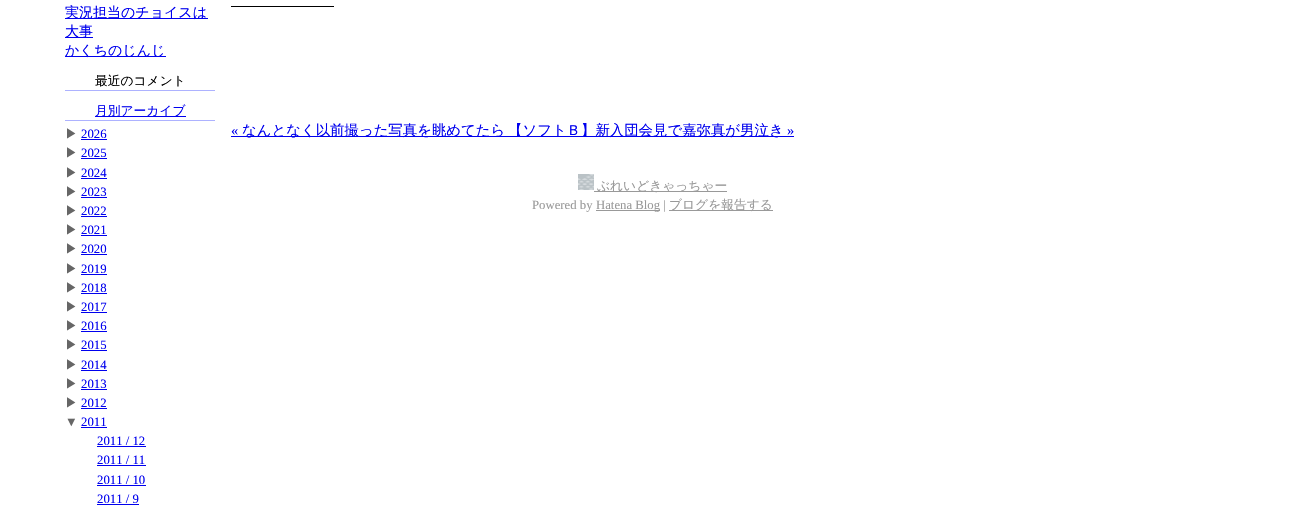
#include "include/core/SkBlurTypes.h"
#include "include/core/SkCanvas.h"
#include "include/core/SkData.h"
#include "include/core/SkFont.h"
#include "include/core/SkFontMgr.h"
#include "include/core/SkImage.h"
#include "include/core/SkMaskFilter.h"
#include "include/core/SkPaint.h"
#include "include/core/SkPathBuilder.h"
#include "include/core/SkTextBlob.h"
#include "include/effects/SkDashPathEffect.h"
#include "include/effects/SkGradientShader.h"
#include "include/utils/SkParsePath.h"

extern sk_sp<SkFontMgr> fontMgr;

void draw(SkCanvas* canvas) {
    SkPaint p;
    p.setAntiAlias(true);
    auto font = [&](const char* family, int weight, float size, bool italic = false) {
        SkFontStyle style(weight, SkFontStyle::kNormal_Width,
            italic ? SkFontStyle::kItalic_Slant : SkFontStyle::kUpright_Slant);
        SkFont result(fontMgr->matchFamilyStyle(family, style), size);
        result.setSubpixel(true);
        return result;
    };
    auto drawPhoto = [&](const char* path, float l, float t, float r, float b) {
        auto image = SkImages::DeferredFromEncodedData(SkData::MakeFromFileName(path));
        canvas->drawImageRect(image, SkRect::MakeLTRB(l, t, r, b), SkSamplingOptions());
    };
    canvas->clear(0xFFFFFFFF);
    p.setColor(0xFF0000EE);
    canvas->drawRect(SkRect::MakeLTRB(65, 18, 208, 19), p);
    auto font1 = font("WenQuanYi Zen Hei", 500, 14);
    canvas->drawString("実況担当のチョイスは", 65, 17, font1, p);
    canvas->drawRect(SkRect::MakeLTRB(65, 37, 93, 38), p);
    canvas->drawString("大事", 65, 36, font1, p);
    canvas->drawRect(SkRect::MakeLTRB(65, 56, 166, 57), p);
    canvas->drawString("かくちのじんじ", 65, 55, font1, p);
    p.setColor(0xFFADB2FF);
    canvas->drawRect(SkRect::MakeLTRB(65, 90, 215, 91), p);
    auto font2 = font("WenQuanYi Zen Hei", 500, 12.75f);
    p.setColor(0xFF000000);
    canvas->drawString("最近のコメント", 95, 85, font2, p);
    p.setColor(0xFFADB2FF);
    canvas->drawRect(SkRect::MakeLTRB(65, 120, 215, 121), p);
    p.setColor(0xFF0000EE);
    canvas->drawRect(SkRect::MakeLTRB(95, 116, 186, 117), p);
    canvas->drawString("月別アーカイブ", 95, 115, font2, p);
    p.setColor(0xFF666666);
    canvas->drawString("▶", 65, 138, font2, p);
    auto font3 = font("Liberation Serif", 400, 12.75f);
    p.setColor(0xFF0000EE);
    canvas->drawString("2026", 81, 138, font3, p);
    canvas->drawRect(SkRect::MakeLTRB(81, 139, 107, 140), p);
    p.setColor(0xFF666666);
    canvas->drawString("▶", 65, 157, font2, p);
    p.setColor(0xFF0000EE);
    canvas->drawString("2025", 81, 157, font3, p);
    canvas->drawRect(SkRect::MakeLTRB(81, 158, 107, 159), p);
    p.setColor(0xFF666666);
    canvas->drawString("▶", 65, 177, font2, p);
    p.setColor(0xFF0000EE);
    canvas->drawString("2024", 81, 177, font3, p);
    canvas->drawRect(SkRect::MakeLTRB(81, 178, 107, 179), p);
    p.setColor(0xFF666666);
    canvas->drawString("▶", 65, 196, font2, p);
    p.setColor(0xFF0000EE);
    canvas->drawString("2023", 81, 196, font3, p);
    canvas->drawRect(SkRect::MakeLTRB(81, 197, 107, 198), p);
    p.setColor(0xFF666666);
    canvas->drawString("▶", 65, 215, font2, p);
    p.setColor(0xFF0000EE);
    canvas->drawString("2022", 81, 215, font3, p);
    canvas->drawRect(SkRect::MakeLTRB(81, 216, 107, 217), p);
    p.setColor(0xFF666666);
    canvas->drawString("▶", 65, 234, font2, p);
    p.setColor(0xFF0000EE);
    canvas->drawString("2021", 81, 234, font3, p);
    canvas->drawRect(SkRect::MakeLTRB(81, 235, 107, 236), p);
    p.setColor(0xFF666666);
    canvas->drawString("▶", 65, 253, font2, p);
    p.setColor(0xFF0000EE);
    canvas->drawString("2020", 81, 253, font3, p);
    canvas->drawRect(SkRect::MakeLTRB(81, 254, 107, 255), p);
    p.setColor(0xFF666666);
    canvas->drawString("▶", 65, 273, font2, p);
    p.setColor(0xFF0000EE);
    canvas->drawString("2019", 81, 273, font3, p);
    canvas->drawRect(SkRect::MakeLTRB(81, 274, 107, 275), p);
    p.setColor(0xFF666666);
    canvas->drawString("▶", 65, 292, font2, p);
    p.setColor(0xFF0000EE);
    canvas->drawString("2018", 81, 292, font3, p);
    canvas->drawRect(SkRect::MakeLTRB(81, 293, 107, 294), p);
    p.setColor(0xFF666666);
    canvas->drawString("▶", 65, 311, font2, p);
    p.setColor(0xFF0000EE);
    canvas->drawString("2017", 81, 311, font3, p);
    canvas->drawRect(SkRect::MakeLTRB(81, 312, 107, 313), p);
    p.setColor(0xFF666666);
    canvas->drawString("▶", 65, 330, font2, p);
    p.setColor(0xFF0000EE);
    canvas->drawString("2016", 81, 330, font3, p);
    canvas->drawRect(SkRect::MakeLTRB(81, 331, 107, 332), p);
    p.setColor(0xFF666666);
    canvas->drawString("▶", 65, 349, font2, p);
    p.setColor(0xFF0000EE);
    canvas->drawString("2015", 81, 349, font3, p);
    canvas->drawRect(SkRect::MakeLTRB(81, 350, 107, 351), p);
    p.setColor(0xFF666666);
    canvas->drawString("▶", 65, 369, font2, p);
    p.setColor(0xFF0000EE);
    canvas->drawString("2014", 81, 369, font3, p);
    canvas->drawRect(SkRect::MakeLTRB(81, 370, 107, 371), p);
    p.setColor(0xFF666666);
    canvas->drawString("▶", 65, 388, font2, p);
    p.setColor(0xFF0000EE);
    canvas->drawString("2013", 81, 388, font3, p);
    canvas->drawRect(SkRect::MakeLTRB(81, 389, 107, 390), p);
    p.setColor(0xFF666666);
    canvas->drawString("▶", 65, 407, font2, p);
    p.setColor(0xFF0000EE);
    canvas->drawString("2012", 81, 407, font3, p);
    canvas->drawRect(SkRect::MakeLTRB(81, 408, 107, 409), p);
    p.setColor(0xFF666666);
    canvas->drawString("▼", 65, 426, font3, p);
    p.setColor(0xFF0000EE);
    canvas->drawString("2011", 81, 426, font3, p);
    canvas->drawRect(SkRect::MakeLTRB(81, 427, 107, 428), p);
    canvas->drawString("2011 / 12", 97, 445, font3, p);
    canvas->drawRect(SkRect::MakeLTRB(97, 446, 146, 447), p);
    canvas->drawString("2011 / 11", 97, 464, font3, p);
    canvas->drawRect(SkRect::MakeLTRB(97, 465, 146, 466), p);
    canvas->drawString("2011 / 10", 97, 484, font3, p);
    canvas->drawRect(SkRect::MakeLTRB(97, 485, 146, 486), p);
    canvas->drawString("2011 / 9", 97, 503, font3, p);
    canvas->drawRect(SkRect::MakeLTRB(97, 504, 139, 505), p);
    p.setColor(0xFF000000);
    canvas->drawRect(SkRect::MakeLTRB(231, 6, 334, 7), p);
    auto font4 = font("Liberation Serif", 400, 14.4f);
    p.setColor(0xFF0000EE);
    canvas->drawString("«", 231, 135, font4, p);
    canvas->drawRect(SkRect::MakeLTRB(231, 136, 794, 137), p);
    auto font5 = font("WenQuanYi Zen Hei", 500, 14.4f);
    canvas->drawString("なんとなく以前撮った写真を眺めてたら", 242, 135, font5, p);
    canvas->drawString("【ソフトＢ】新入団会見で嘉弥真が男泣き", 508, 135, font5, p);
    canvas->drawString("»", 787, 135, font4, p);
    drawPhoto("media/1.png", 578, 174, 594, 190);
    p.setColor(0xFF999999);
    canvas->drawRect(SkRect::MakeLTRB(594, 191, 727, 192), p);
    canvas->drawString("ぶれいどきゃっちゃー", 597, 190, font2, p);
    canvas->drawString("Powered by", 532, 209, font3, p);
    canvas->drawRect(SkRect::MakeLTRB(596, 210, 660, 211), p);
    canvas->drawString("Hatena Blog |", 596, 209, font3, p);
    canvas->drawRect(SkRect::MakeLTRB(669, 210, 773, 211), p);
    canvas->drawString("ブログを報告する", 669, 209, font2, p);
}
